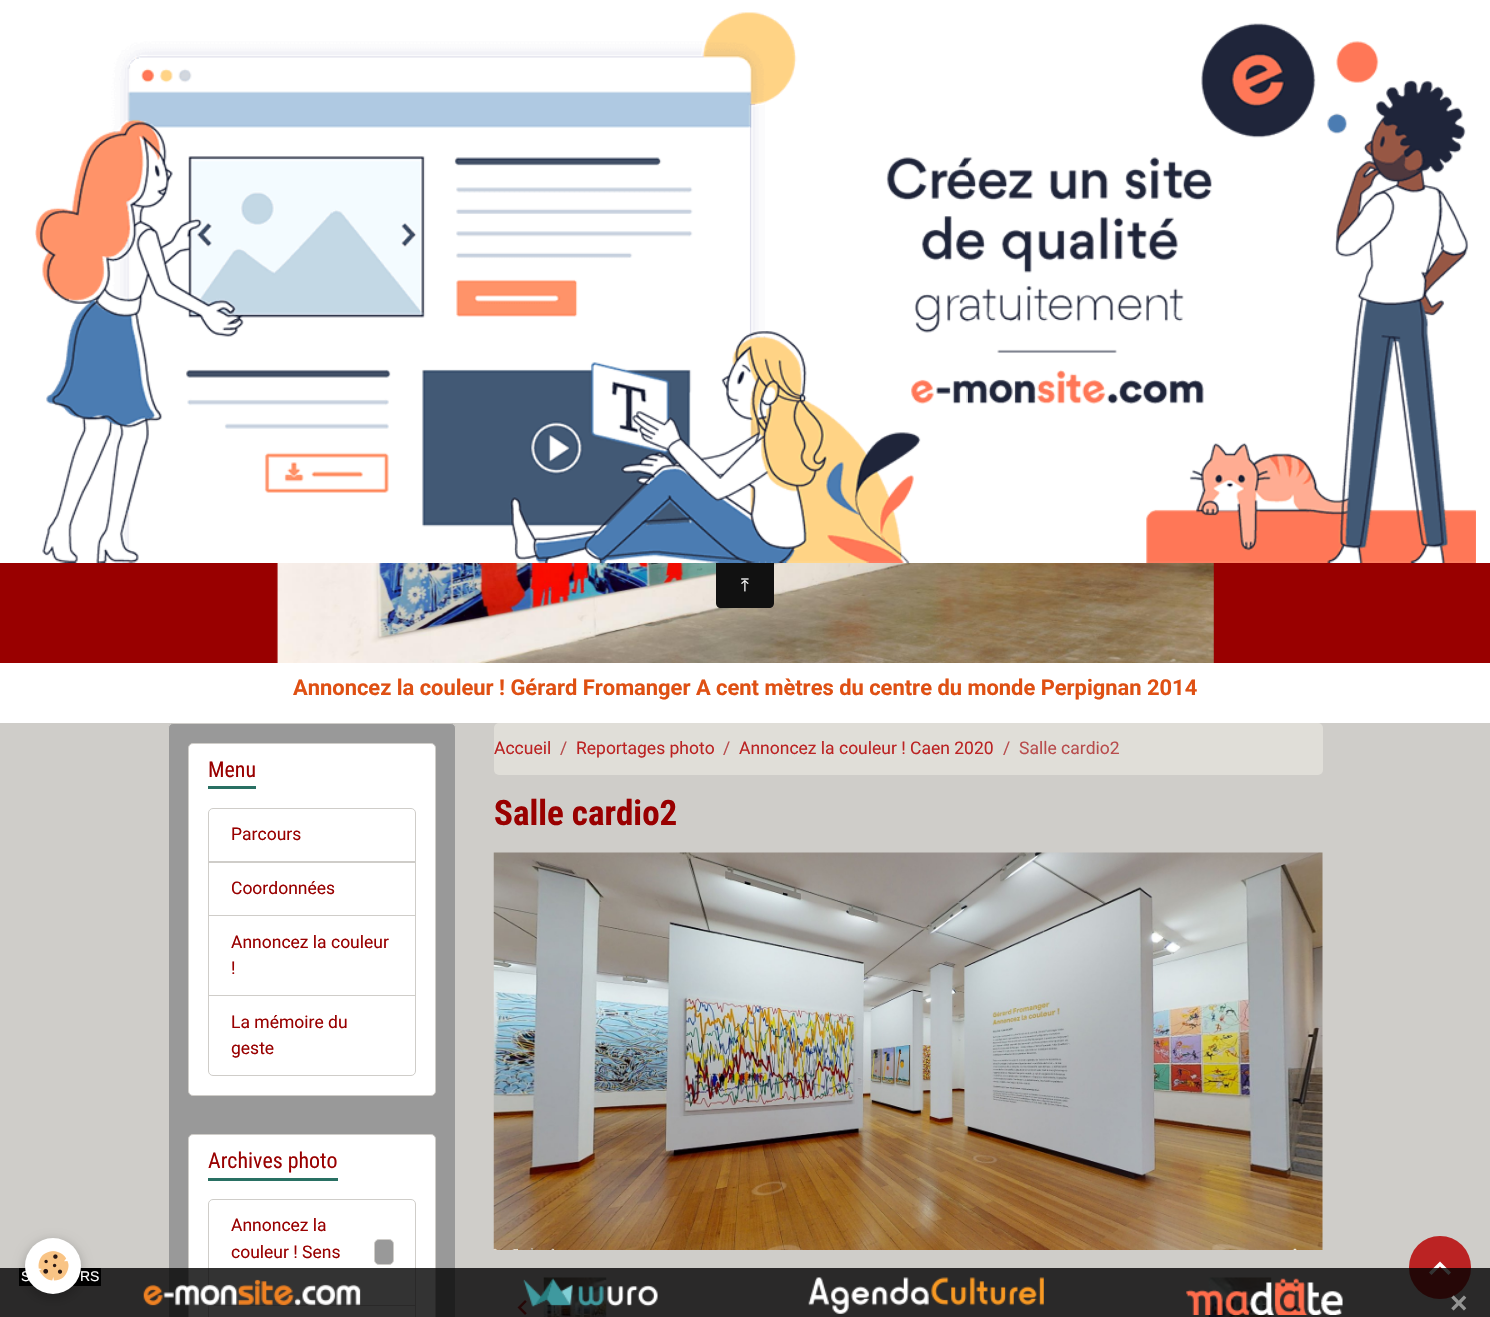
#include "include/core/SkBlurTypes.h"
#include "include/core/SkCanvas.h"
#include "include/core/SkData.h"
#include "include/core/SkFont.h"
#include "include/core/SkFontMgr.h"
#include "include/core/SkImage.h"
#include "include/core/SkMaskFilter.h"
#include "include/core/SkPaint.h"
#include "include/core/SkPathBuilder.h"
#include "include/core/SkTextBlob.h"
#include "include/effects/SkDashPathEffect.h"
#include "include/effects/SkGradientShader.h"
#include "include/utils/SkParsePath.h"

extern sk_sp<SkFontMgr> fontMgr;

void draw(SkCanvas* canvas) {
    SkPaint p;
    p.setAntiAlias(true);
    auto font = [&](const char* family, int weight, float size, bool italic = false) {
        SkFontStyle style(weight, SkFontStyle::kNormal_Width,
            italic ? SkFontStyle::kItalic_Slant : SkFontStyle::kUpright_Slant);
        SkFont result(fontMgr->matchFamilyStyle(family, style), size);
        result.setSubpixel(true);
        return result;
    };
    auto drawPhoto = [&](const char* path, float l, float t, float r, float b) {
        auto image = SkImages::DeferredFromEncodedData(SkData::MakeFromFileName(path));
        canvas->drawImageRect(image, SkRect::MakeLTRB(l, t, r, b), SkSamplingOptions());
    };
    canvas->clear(0xFFCFCDC9);
    p.setColor(0xFFFFFFFF);
    canvas->drawRect(SkRect::MakeLTRB(0, 0, 1490, 563), p);
    drawPhoto("media/1.png", 35, 12, 1476, 563);
    p.setColor(0xFF990000);
    canvas->drawRect(SkRect::MakeLTRB(0, 563, 1490, 663), p);
    drawPhoto("media/2.png", 276, 563, 1214, 663);
    p.setColor(0xFF111111);
    canvas->drawPath(SkPathBuilder().moveTo(716, 563).lineTo(774, 563).lineTo(774, 603).cubicTo(774, 606, 772, 608, 769, 608).lineTo(721, 608).cubicTo(718, 608, 716, 606, 716, 603).close().detach(), p);
    auto font1 = font("FreeSerif", 400, 17.5f);
    p.setColor(0xFFFFFFFF);
    canvas->drawString("⤒", 741, 591, font1, p);
    canvas->drawRect(SkRect::MakeLTRB(0, 663, 1490, 723), p);
    auto font2 = font("Roboto", 700, 21.9f);
    p.setColor(0xFFDF5013);
    canvas->drawString("Annoncez la couleur ! Gérard Fromanger A cent mètres du centre du monde Perpignan 2014", 293, 695, font2, p);
    p.setColor(0xFF999999);
    canvas->drawRoundRect(SkRect::MakeLTRB(168.5f, 723.5f, 455.5f, 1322.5f), 4.5f, 4.5f, p);
    p.setStyle(SkPaint::kStroke_Style);
    p.setStrokeWidth(1);
    p.setColor(0xFFCFCDC9);
    canvas->drawRoundRect(SkRect::MakeLTRB(168.5f, 723.5f, 455.5f, 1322.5f), 4.5f, 4.5f, p);
    p.setStyle(SkPaint::kFill_Style);
    p.setColor(0xFFFFFFFF);
    canvas->drawRoundRect(SkRect::MakeLTRB(188.5f, 743.5f, 435.5f, 1095.5f), 4.5f, 4.5f, p);
    p.setStyle(SkPaint::kStroke_Style);
    p.setColor(0xFFCFCDC9);
    canvas->drawRoundRect(SkRect::MakeLTRB(188.5f, 743.5f, 435.5f, 1095.5f), 4.5f, 4.5f, p);
    p.setStyle(SkPaint::kFill_Style);
    p.setColor(0xFF297063);
    canvas->drawRect(SkRect::MakeLTRB(208, 786, 256, 789), p);
    auto font3 = font("Roboto Condensed", 400, 21.9f);
    p.setColor(0xFF990000);
    canvas->drawString("Menu", 208, 777, font3, p);
    p.setStyle(SkPaint::kStroke_Style);
    p.setColor(0xFFCFCDC9);
    canvas->drawPath(SkPathBuilder().moveTo(213, 808.5f).lineTo(411, 808.5f).cubicTo(413.5f, 808.5f, 415.5f, 810.5f, 415.5f, 813).lineTo(415.5f, 862.5f).lineTo(208.5f, 862.5f).lineTo(208.5f, 813).cubicTo(208.5f, 810.5f, 210.5f, 808.5f, 213, 808.5f).close().detach(), p);
    auto font4 = font("Roboto", 400, 17.5f);
    p.setStyle(SkPaint::kFill_Style);
    p.setColor(0xFF990000);
    canvas->drawString("Parcours", 231, 840, font4, p);
    p.setStyle(SkPaint::kStroke_Style);
    p.setColor(0xFFCFCDC9);
    canvas->drawRect(SkRect::MakeLTRB(208.5f, 861.5f, 415.5f, 915.5f), p);
    p.setStyle(SkPaint::kFill_Style);
    p.setColor(0xFF990000);
    canvas->drawString("Coordonnées", 231, 894, font4, p);
    p.setStyle(SkPaint::kStroke_Style);
    p.setColor(0xFFCFCDC9);
    canvas->drawRect(SkRect::MakeLTRB(208.5f, 915.5f, 415.5f, 995.5f), p);
    p.setStyle(SkPaint::kFill_Style);
    p.setColor(0xFF990000);
    canvas->drawString("Annoncez la couleur", 231, 948, font4, p);
    canvas->drawString("!", 231, 974, font4, p);
    p.setStyle(SkPaint::kStroke_Style);
    p.setColor(0xFFCFCDC9);
    canvas->drawPath(SkPathBuilder().moveTo(208.5f, 995.5f).lineTo(415.5f, 995.5f).lineTo(415.5f, 1071).cubicTo(415.5f, 1073.5f, 413.5f, 1075.5f, 411, 1075.5f).lineTo(213, 1075.5f).cubicTo(210.5f, 1075.5f, 208.5f, 1073.5f, 208.5f, 1071).close().detach(), p);
    p.setStyle(SkPaint::kFill_Style);
    p.setColor(0xFF990000);
    canvas->drawString("La mémoire du", 231, 1028, font4, p);
    canvas->drawString("geste", 231, 1054, font4, p);
    p.setColor(0xFFFFFFFF);
    canvas->drawRoundRect(SkRect::MakeLTRB(188.5f, 1134.5f, 435.5f, 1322.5f), 4.5f, 4.5f, p);
    p.setStyle(SkPaint::kStroke_Style);
    p.setColor(0xFFCFCDC9);
    canvas->drawRoundRect(SkRect::MakeLTRB(188.5f, 1134.5f, 435.5f, 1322.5f), 4.5f, 4.5f, p);
    p.setStyle(SkPaint::kFill_Style);
    p.setColor(0xFF297063);
    canvas->drawRect(SkRect::MakeLTRB(208, 1178, 338, 1181), p);
    p.setColor(0xFF990000);
    canvas->drawString("Archives photo", 208, 1168, font3, p);
    p.setStyle(SkPaint::kStroke_Style);
    p.setColor(0xFFCFCDC9);
    canvas->drawPath(SkPathBuilder().moveTo(213, 1199.5f).lineTo(411, 1199.5f).cubicTo(413.5f, 1199.5f, 415.5f, 1201.5f, 415.5f, 1204).lineTo(415.5f, 1305.5f).lineTo(208.5f, 1305.5f).lineTo(208.5f, 1204).cubicTo(208.5f, 1201.5f, 210.5f, 1199.5f, 213, 1199.5f).close().detach(), p);
    p.setStyle(SkPaint::kFill_Style);
    p.setColor(0xFF990000);
    canvas->drawString("Annoncez la", 231, 1231, font4, p);
    canvas->drawString("couleur ! Sens", 231, 1258, font4, p);
    p.setColor(0xFF999999);
    canvas->drawRoundRect(SkRect::MakeLTRB(374.5f, 1239.5f, 393.5f, 1264.5f), 4.5f, 4.5f, p);
    p.setStyle(SkPaint::kStroke_Style);
    p.setColor(0xFFCFCDC9);
    canvas->drawRoundRect(SkRect::MakeLTRB(374.5f, 1239.5f, 393.5f, 1264.5f), 4.5f, 4.5f, p);
    canvas->drawRect(SkRect::MakeLTRB(208.5f, 1305.5f, 415.5f, 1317.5f), p);
    p.setStyle(SkPaint::kFill_Style);
    p.setColor(0xFFE0DED8);
    canvas->drawRoundRect(SkRect::MakeLTRB(494, 723, 1323, 775), 5, 5, p);
    p.setColor(0xFFBB2323);
    canvas->drawString("Accueil", 494, 754, font4, p);
    p.setColor(0xFFB84D4D);
    canvas->drawString("/", 560, 754, font4, p);
    p.setColor(0xFFBB2323);
    canvas->drawString("Reportages photo", 576, 754, font4, p);
    p.setColor(0xFFB84D4D);
    canvas->drawString("/", 723, 754, font4, p);
    p.setColor(0xFFBB2323);
    canvas->drawString("Annoncez la couleur ! Caen 2020", 739, 754, font4, p);
    p.setColor(0xFFB84D4D);
    canvas->drawString("/", 1003, 754, font4, p);
    canvas->drawString("Salle cardio2", 1019, 754, font4, p);
    auto font5 = font("Roboto Condensed", 700, 35);
    p.setColor(0xFF990000);
    canvas->drawString("Salle cardio2", 494, 825, font5, p);
    drawPhoto("media/3.png", 493, 852, 1323, 1250);
    drawPhoto("media/4.png", 517, 1300, 527, 1315);
    drawPhoto("media/5.png", 543, 1277, 607, 1317);
    drawPhoto("media/6.png", 1208, 1277, 1272, 1317);
    drawPhoto("media/7.png", 1288, 1303, 1298, 1313);
    p.setColor(0xFFBB2323);
    canvas->drawRoundRect(SkRect::MakeLTRB(1409, 1236, 1471, 1299), 31, 31, p);
    p.setColor(0xFFFFFFFF);
    canvas->drawPath(SkPathBuilder().moveTo(1440, 1261.5f).lineTo(1451, 1272.5f).lineTo(1448.5f, 1275).lineTo(1440, 1266.5f).lineTo(1431.5f, 1275).lineTo(1429, 1272.5f).close().detach(), p);
    p.setColor(0xCC000000);
    canvas->drawRect(SkRect::MakeLTRB(0, 1268, 1490, 1317), p);
    p.setColor(0xFF000000);
    canvas->drawRect(SkRect::MakeLTRB(19, 1268, 101, 1286), p);
    p.setColor(0x3D000000);
    p.setMaskFilter(SkMaskFilter::MakeBlur(kNormal_SkBlurStyle, 6));
    canvas->drawRoundRect(SkRect::MakeLTRB(25, 1241, 81, 1298), 28, 28, p);
    p.setMaskFilter(nullptr);
    p.setColor(0xFFFFFFFF);
    canvas->drawCircle(53, 1266, 28, p);
    drawPhoto("media/8.png", 38, 1251, 69, 1281);
    auto font6 = font("Liberation Sans", 400, 14);
    canvas->drawString("S", 21, 1281, font6, p);
    canvas->drawString("RS", 80, 1281, font6, p);
    drawPhoto("media/9.png", 143, 1279, 361, 1306);
    drawPhoto("media/10.png", 523, 1278, 658, 1307);
    drawPhoto("media/11.png", 808, 1277, 1044, 1314);
    drawPhoto("media/12.png", 1186, 1278, 1343, 1315);
    auto font7 = font("Liberation Sans", 700, 30);
    p.setColor(0xFF949493);
    canvas->drawString("×", 1450, 1313, font7, p);
}
